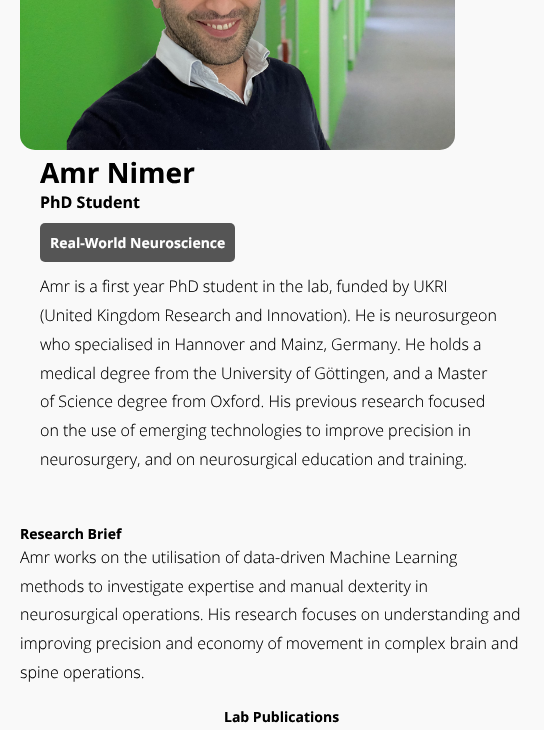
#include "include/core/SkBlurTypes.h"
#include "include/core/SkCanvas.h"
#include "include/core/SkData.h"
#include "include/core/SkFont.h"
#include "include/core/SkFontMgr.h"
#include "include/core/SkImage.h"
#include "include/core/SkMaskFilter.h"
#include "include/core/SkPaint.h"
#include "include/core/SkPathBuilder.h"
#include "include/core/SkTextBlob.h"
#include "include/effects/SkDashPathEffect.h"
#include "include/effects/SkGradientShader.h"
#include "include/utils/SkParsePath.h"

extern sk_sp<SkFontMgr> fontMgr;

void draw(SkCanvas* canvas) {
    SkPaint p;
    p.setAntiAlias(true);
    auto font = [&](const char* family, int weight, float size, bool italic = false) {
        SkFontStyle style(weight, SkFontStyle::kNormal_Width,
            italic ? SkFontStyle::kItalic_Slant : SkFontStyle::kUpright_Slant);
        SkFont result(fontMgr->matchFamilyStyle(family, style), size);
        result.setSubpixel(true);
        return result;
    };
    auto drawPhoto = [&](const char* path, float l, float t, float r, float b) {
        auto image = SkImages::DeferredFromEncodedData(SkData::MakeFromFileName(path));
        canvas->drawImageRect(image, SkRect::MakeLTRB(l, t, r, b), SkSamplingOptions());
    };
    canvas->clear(0xFFF9F9F9);
    drawPhoto("media/1.png", 20, 0, 455, 150);
    auto font1 = font("Open Sans", 700, 28);
    p.setColor(0xFF000000);
    canvas->drawString("Amr Nimer", 40, 183, font1, p);
    auto font2 = font("Open Sans", 700, 16);
    canvas->drawString("PhD Student", 40, 208, font2, p);
    p.setColor(0xFF555555);
    canvas->drawRoundRect(SkRect::MakeLTRB(40, 223, 235, 262), 5, 5, p);
    auto font3 = font("Open Sans", 700, 14);
    p.setColor(0xFFFFFFFF);
    canvas->drawString("Real-World Neuroscience", 50, 248, font3, p);
    auto font4 = font("Open Sans", 300, 16);
    p.setColor(0xFF000000);
    {
        const struct { const char* s; float x, y; } items[] = {
            {"Amr is a first year PhD student in the lab, funded by UKRI", 40, 292},
            {"(United Kingdom Research and Innovation). He is neurosurgeon", 40, 321},
            {"who specialised in Hannover and Mainz, Germany. He holds a", 40, 350},
            {"medical degree from the University of Göttingen, and a Master", 40, 379},
            {"of Science degree from Oxford. His previous research focused", 40, 407},
            {"on the use of emerging technologies to improve precision in", 40, 436},
            {"neurosurgery, and on neurosurgical education and training.", 40, 465},
        };
        for (auto [s, x, y] : items) {
            canvas->drawString(s, x, y, font4, p);
        }
    }
    canvas->drawString("Research Brief", 20, 539, font3, p);
    {
        const struct { const char* s; float x, y; } items[] = {
            {"Amr works on the utilisation of data-driven Machine Learning", 20, 563},
            {"methods to investigate expertise and manual dexterity in", 20, 592},
            {"neurosurgical operations. His research focuses on understanding and", 20, 620},
            {"improving precision and economy of movement in complex brain and", 20, 649},
            {"spine operations.", 20, 678},
        };
        for (auto [s, x, y] : items) {
            canvas->drawString(s, x, y, font4, p);
        }
    }
    canvas->drawString("Lab Publications", 224, 722, font3, p);
}
